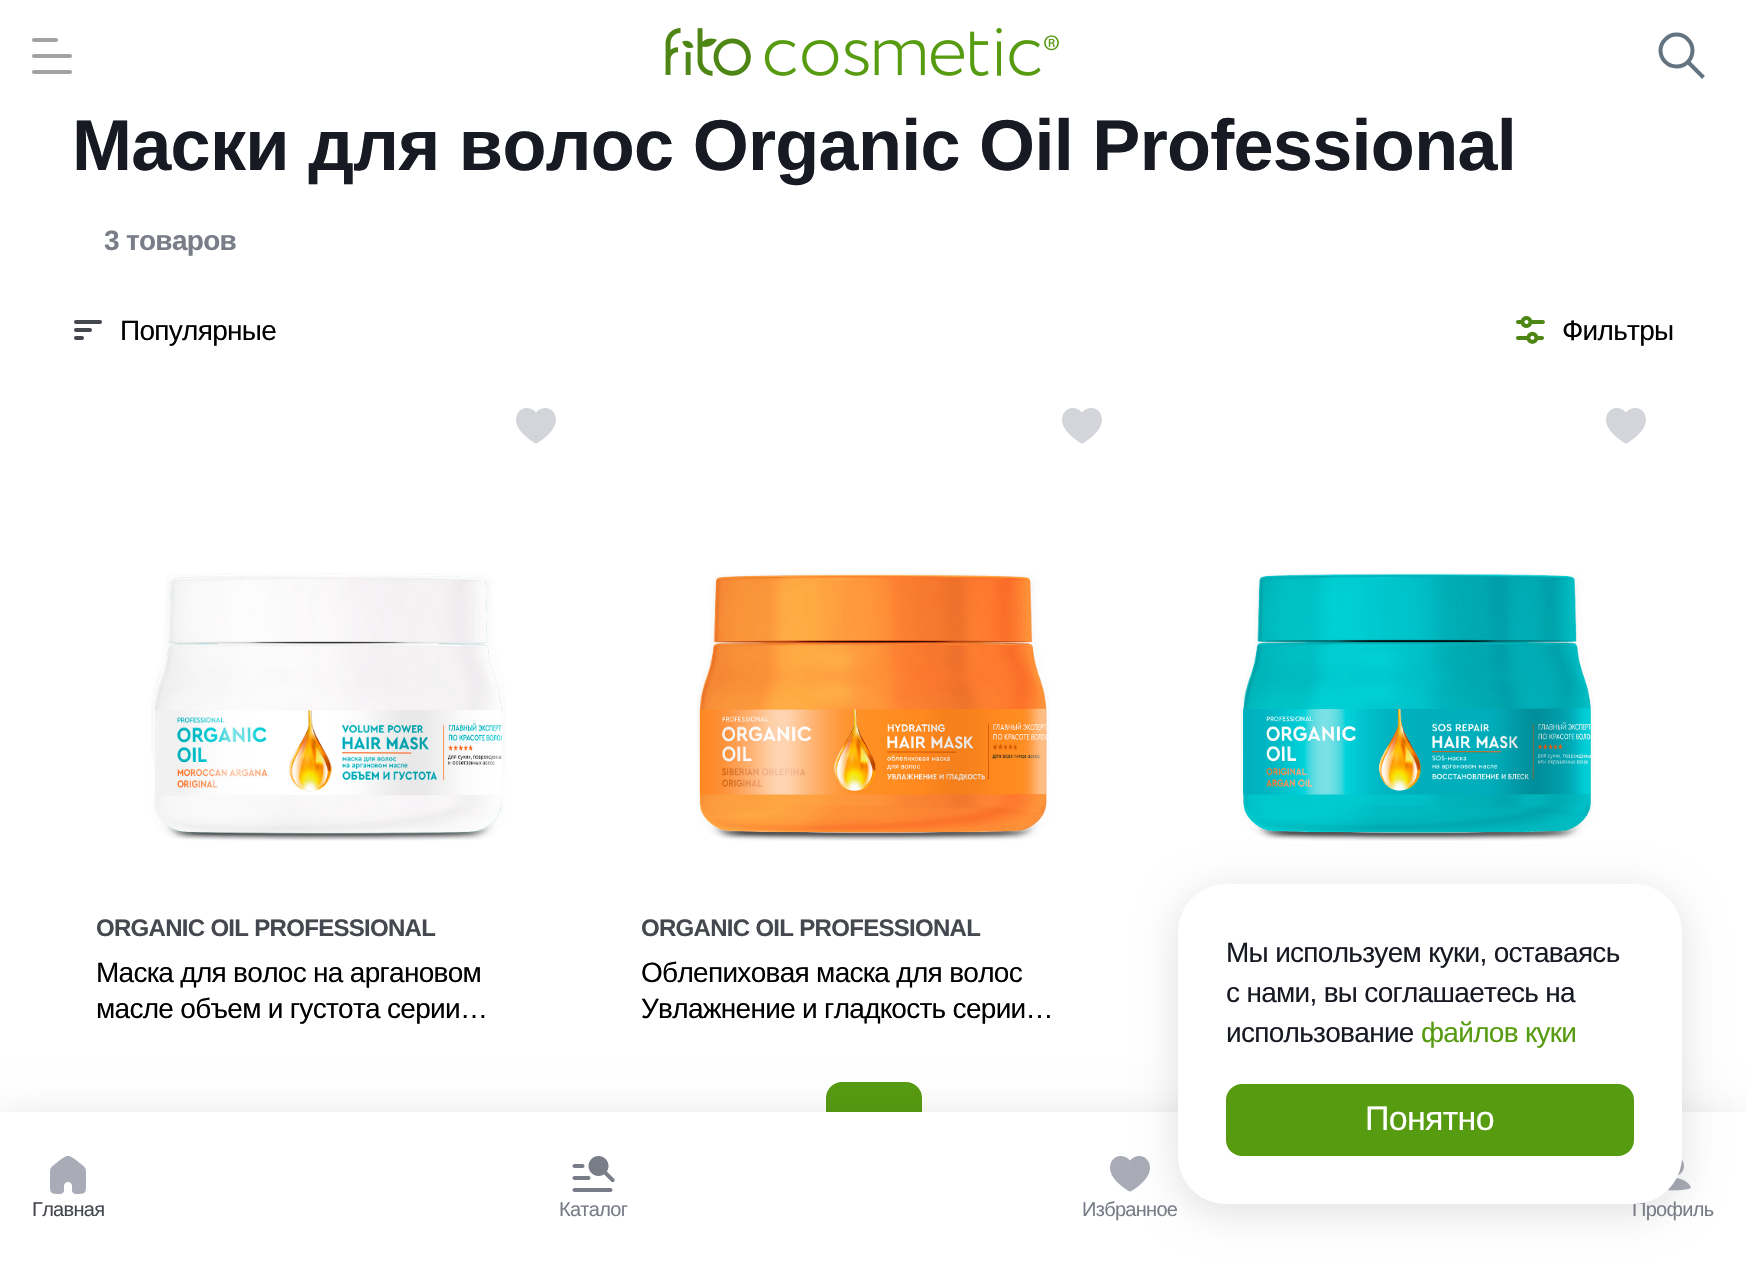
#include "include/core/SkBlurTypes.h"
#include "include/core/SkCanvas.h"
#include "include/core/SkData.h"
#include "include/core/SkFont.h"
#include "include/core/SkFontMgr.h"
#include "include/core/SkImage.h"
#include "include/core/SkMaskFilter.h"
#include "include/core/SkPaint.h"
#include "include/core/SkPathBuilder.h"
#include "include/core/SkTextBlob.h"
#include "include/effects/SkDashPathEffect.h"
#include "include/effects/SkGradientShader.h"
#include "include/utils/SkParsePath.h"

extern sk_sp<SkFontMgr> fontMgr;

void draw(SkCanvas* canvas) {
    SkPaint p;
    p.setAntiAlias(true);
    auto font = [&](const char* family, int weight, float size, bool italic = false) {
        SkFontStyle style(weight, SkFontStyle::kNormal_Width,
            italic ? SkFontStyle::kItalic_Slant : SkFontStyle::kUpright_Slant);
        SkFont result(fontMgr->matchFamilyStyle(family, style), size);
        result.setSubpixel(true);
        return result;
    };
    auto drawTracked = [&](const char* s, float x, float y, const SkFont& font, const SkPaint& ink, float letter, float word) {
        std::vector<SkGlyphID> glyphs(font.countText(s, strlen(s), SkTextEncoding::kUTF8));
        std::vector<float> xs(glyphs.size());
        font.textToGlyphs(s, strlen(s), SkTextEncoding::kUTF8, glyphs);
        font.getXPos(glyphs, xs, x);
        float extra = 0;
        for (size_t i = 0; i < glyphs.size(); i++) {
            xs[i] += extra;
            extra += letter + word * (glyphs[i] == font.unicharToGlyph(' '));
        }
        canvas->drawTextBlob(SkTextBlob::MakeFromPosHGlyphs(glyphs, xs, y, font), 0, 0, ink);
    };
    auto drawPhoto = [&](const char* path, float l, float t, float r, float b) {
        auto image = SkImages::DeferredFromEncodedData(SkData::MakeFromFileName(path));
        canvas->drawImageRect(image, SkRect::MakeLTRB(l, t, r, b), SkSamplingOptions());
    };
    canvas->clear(0xFFFFFFFF);
    auto font1 = font("Liberation Sans", 700, 72);
    p.setColor(0xFF171A23);
    drawTracked("Маски для волос Organic Oil Professional", 72, 170, font1, p, -0.7f, 0);
    auto font2 = font("Liberation Sans", 700, 28);
    p.setColor(0xFF797D88);
    drawTracked("3 товаров", 104, 250, font2, p, -0.7f, 0);
    drawPhoto("media/1.png", 74, 320, 102, 340);
    auto font3 = font("Liberation Sans", 400, 28);
    p.setColor(0xFF000000);
    drawTracked("Популярные", 120, 340, font3, p, -0.7f, 0);
    drawPhoto("media/2.png", 1516, 316, 1545, 344);
    drawTracked("Фильтры", 1562, 340, font3, p, -0.7f, 0);
    drawPhoto("media/3.png", 1606, 408, 1646, 444);
    drawPhoto("media/4.png", 1241, 573, 1593, 841);
    drawPhoto("media/3.png", 516, 408, 556, 444);
    drawPhoto("media/5.png", 151, 573, 505, 841);
    auto font4 = font("Liberation Sans", 700, 24);
    p.setColor(0xFF45484F);
    drawTracked("ORGANIC OIL PROFESSIONAL", 96, 936, font4, p, -0.7f, 0);
    p.setColor(0xFF000000);
    drawTracked("Маска для волос на аргановом", 96, 982, font3, p, -0.7f, 0);
    drawTracked("масле объем и густота серии…", 96, 1018, font3, p, -0.7f, 0);
    drawPhoto("media/3.png", 1062, 408, 1102, 444);
    drawPhoto("media/6.png", 697, 573, 1049, 841);
    p.setColor(0xFF45484F);
    drawTracked("ORGANIC OIL PROFESSIONAL", 641, 936, font4, p, -0.7f, 0);
    p.setColor(0xFF000000);
    drawTracked("Облепиховая маска для волос", 641, 982, font3, p, -0.7f, 0);
    drawTracked("Увлажнение и гладкость серии…", 641, 1018, font3, p, -0.7f, 0);
    p.setColor(0xFF579B11);
    canvas->drawRoundRect(SkRect::MakeLTRB(826, 1082, 922, 1178), 16, 16, p);
    p.setColor(0x1F000000);
    p.setMaskFilter(SkMaskFilter::MakeBlur(kNormal_SkBlurStyle, 20));
    canvas->drawRect(SkRect::MakeLTRB(0, 1120, 1746, 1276), p);
    p.setMaskFilter(nullptr);
    p.setColor(0xFFFFFFFF);
    canvas->drawRect(SkRect::MakeLTRB(0, 1112, 1746, 1267), p);
    drawPhoto("media/10.png", 1110, 1156, 1150, 1192);
    drawPhoto("media/11.png", 1667, 1159, 1691, 1191);
    p.setColor(0x1F000000);
    p.setMaskFilter(SkMaskFilter::MakeBlur(kNormal_SkBlurStyle, 20));
    canvas->drawRoundRect(SkRect::MakeLTRB(1178, 892, 1682, 1212), 48, 48, p);
    p.setMaskFilter(nullptr);
    auto font5 = font("Liberation Sans", 400, 20);
    p.setColor(0xFF797D88);
    drawTracked("Профиль", 1632, 1216, font5, p, -0.7f, 0);
    p.setColor(0xFFFFFFFF);
    canvas->drawRoundRect(SkRect::MakeLTRB(1178, 884, 1682, 1204), 48, 48, p);
    p.setColor(0xFF171A23);
    {
        const struct { const char* s; float x, y; } items[] = {
            {"Мы используем куки, оставаясь", 1226, 962},
            {"с нами, вы соглашаетесь на", 1226, 1002},
            {"использование", 1226, 1042},
        };
        for (auto [s, x, y] : items) {
            drawTracked(s, x, y, font3, p, -0.7f, 0);
        }
    }
    p.setColor(0xFF579B11);
    drawTracked("файлов куки", 1421, 1042, font3, p, -0.7f, 0);
    canvas->drawRoundRect(SkRect::MakeLTRB(1226, 1084, 1634, 1156), 16, 16, p);
    auto font6 = font("Liberation Sans", 400, 34);
    p.setColor(0xFFFFFFFF);
    drawTracked("Понятно", 1365, 1130, font6, p, -0.7f, 0);
    p.setColor(0xFFA2A3A7);
    canvas->drawRoundRect(SkRect::MakeLTRB(32, 38, 58, 42), 2, 2, p);
    canvas->drawRoundRect(SkRect::MakeLTRB(32, 54, 72, 58), 2, 2, p);
    canvas->drawRoundRect(SkRect::MakeLTRB(32, 70, 72, 74), 2, 2, p);
    drawPhoto("media/7.png", 665, 28, 1059, 76);
    p.setStyle(SkPaint::kStroke_Style);
    p.setStrokeWidth(4);
    p.setColor(0xFF647380);
    canvas->drawPath(SkPathBuilder().moveTo(1688.5f, 62.5f).lineTo(1703.5f, 77.5f).moveTo(1676.5f, 66.5f).cubicTo(1685.5f, 66.5f, 1692.5f, 59.5f, 1692.5f, 50.5f).cubicTo(1692.5f, 42, 1685.5f, 34.5f, 1676.5f, 34.5f).cubicTo(1668, 34.5f, 1660.5f, 42, 1660.5f, 50.5f).cubicTo(1660.5f, 59.5f, 1668, 66.5f, 1676.5f, 66.5f).close().detach(), p);
    drawPhoto("media/8.png", 50, 1156, 86, 1194);
    p.setStyle(SkPaint::kFill_Style);
    p.setColor(0xFF45484F);
    drawTracked("Главная", 32, 1216, font5, p, -0.7f, 0);
    drawPhoto("media/9.png", 572, 1156, 615, 1192);
    p.setColor(0xFF797D88);
    drawTracked("Каталог", 559, 1216, font5, p, -0.7f, 0);
    drawTracked("Избранное", 1082, 1216, font5, p, -0.7f, 0);
}
